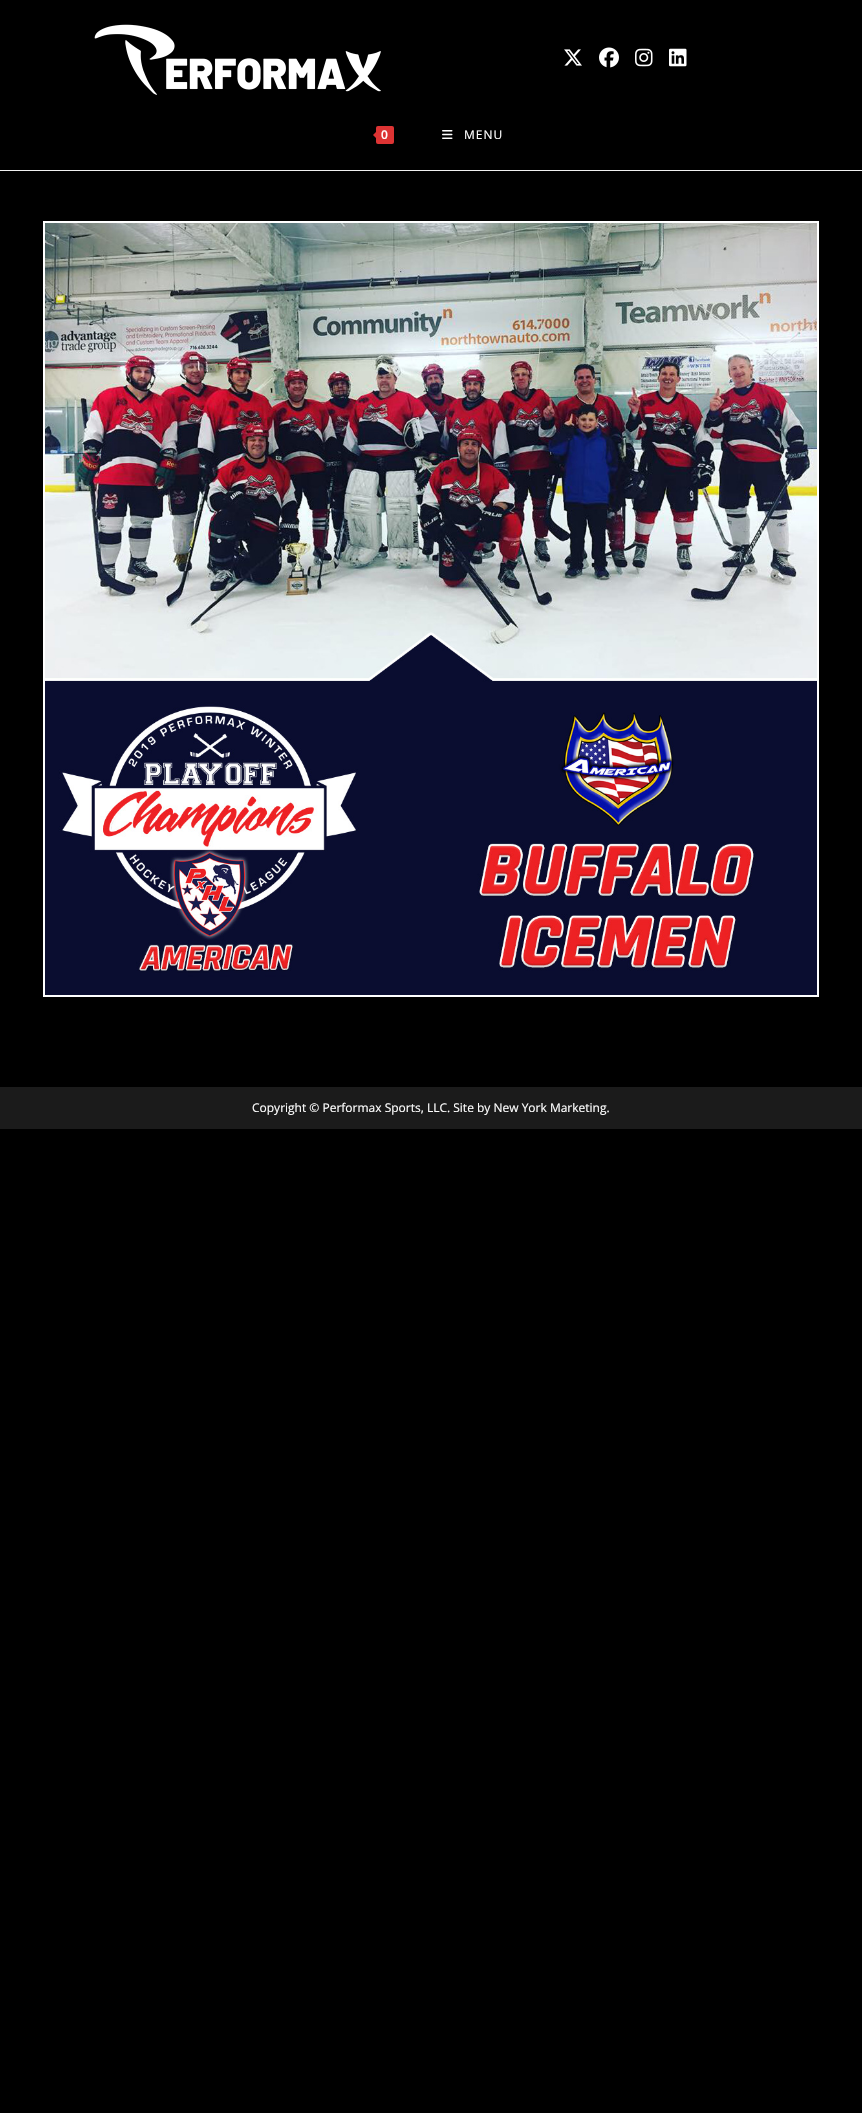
#include "include/core/SkBlurTypes.h"
#include "include/core/SkCanvas.h"
#include "include/core/SkData.h"
#include "include/core/SkFont.h"
#include "include/core/SkFontMgr.h"
#include "include/core/SkImage.h"
#include "include/core/SkMaskFilter.h"
#include "include/core/SkPaint.h"
#include "include/core/SkPathBuilder.h"
#include "include/core/SkTextBlob.h"
#include "include/effects/SkDashPathEffect.h"
#include "include/effects/SkGradientShader.h"
#include "include/utils/SkParsePath.h"

extern sk_sp<SkFontMgr> fontMgr;

void draw(SkCanvas* canvas) {
    SkPaint p;
    p.setAntiAlias(true);
    auto font = [&](const char* family, int weight, float size, bool italic = false) {
        SkFontStyle style(weight, SkFontStyle::kNormal_Width,
            italic ? SkFontStyle::kItalic_Slant : SkFontStyle::kUpright_Slant);
        SkFont result(fontMgr->matchFamilyStyle(family, style), size);
        result.setSubpixel(true);
        return result;
    };
    auto drawTracked = [&](const char* s, float x, float y, const SkFont& font, const SkPaint& ink, float letter, float word) {
        std::vector<SkGlyphID> glyphs(font.countText(s, strlen(s), SkTextEncoding::kUTF8));
        std::vector<float> xs(glyphs.size());
        font.textToGlyphs(s, strlen(s), SkTextEncoding::kUTF8, glyphs);
        font.getXPos(glyphs, xs, x);
        float extra = 0;
        for (size_t i = 0; i < glyphs.size(); i++) {
            xs[i] += extra;
            extra += letter + word * (glyphs[i] == font.unicharToGlyph(' '));
        }
        canvas->drawTextBlob(SkTextBlob::MakeFromPosHGlyphs(glyphs, xs, y, font), 0, 0, ink);
    };
    auto drawPhoto = [&](const char* path, float l, float t, float r, float b) {
        auto image = SkImages::DeferredFromEncodedData(SkData::MakeFromFileName(path));
        canvas->drawImageRect(image, SkRect::MakeLTRB(l, t, r, b), SkSamplingOptions());
    };
    canvas->clear(0xFF000000);
    p.setColor(0xFFF1F1F1);
    canvas->drawRect(SkRect::MakeLTRB(0, 170, 862, 171), p);
    drawPhoto("media/1.png", 94, 24, 381, 95);
    drawPhoto("media/2.png", 564, 49, 582, 66);
    drawPhoto("media/3.png", 599, 47, 619, 68);
    drawPhoto("media/4.png", 635, 48, 653, 67);
    drawPhoto("media/5.png", 669, 48, 687, 67);
    p.setColor(0xFFDD3333);
    canvas->drawRoundRect(SkRect::MakeLTRB(376, 126, 394, 144), 2, 2, p);
    canvas->drawPath(SkPathBuilder().moveTo(378, 130).lineTo(378, 140).lineTo(373, 135).close().detach(), p);
    auto font1 = font("Open Sans", 600, 12);
    p.setColor(0xFFFFFFFF);
    drawTracked("0", 381, 139, font1, p, 1, 0);
    drawPhoto("media/6.png", 442, 130, 453, 139);
    auto font2 = font("Open Sans", 400, 12);
    drawTracked("MENU", 464, 139, font2, p, 1, 0);
    drawPhoto("media/7.png", 45, 223, 817, 995);
    p.setStyle(SkPaint::kStroke_Style);
    p.setStrokeWidth(2);
    canvas->drawRect(SkRect::MakeLTRB(44, 222, 818, 996), p);
    p.setStyle(SkPaint::kFill_Style);
    p.setColor(0xFF1B1B1B);
    canvas->drawRect(SkRect::MakeLTRB(0, 1087, 862, 1129), p);
    p.setColor(0xFFFFFFFF);
    canvas->drawString("Copyright © Performax Sports, LLC. Site by New York Marketing.", 252, 1112, font2, p);
}
